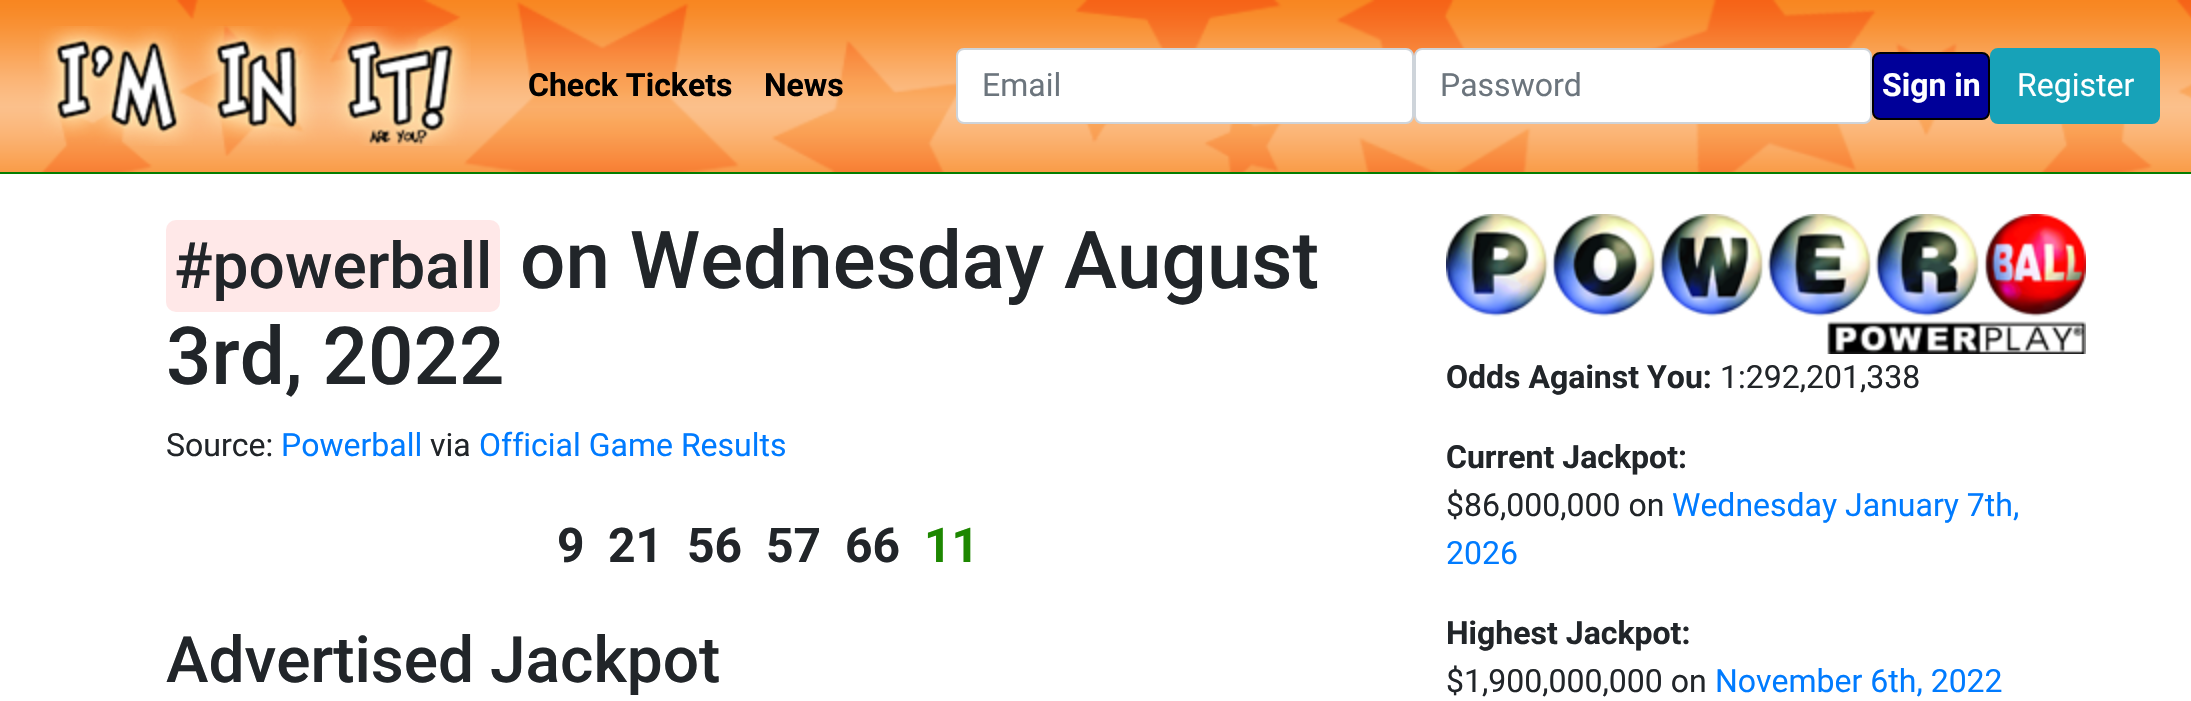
#include "include/core/SkBlurTypes.h"
#include "include/core/SkCanvas.h"
#include "include/core/SkData.h"
#include "include/core/SkFont.h"
#include "include/core/SkFontMgr.h"
#include "include/core/SkImage.h"
#include "include/core/SkMaskFilter.h"
#include "include/core/SkPaint.h"
#include "include/core/SkPathBuilder.h"
#include "include/core/SkTextBlob.h"
#include "include/effects/SkDashPathEffect.h"
#include "include/effects/SkGradientShader.h"
#include "include/utils/SkParsePath.h"

extern sk_sp<SkFontMgr> fontMgr;

void draw(SkCanvas* canvas) {
    SkPaint p;
    p.setAntiAlias(true);
    auto font = [&](const char* family, int weight, float size, bool italic = false) {
        SkFontStyle style(weight, SkFontStyle::kNormal_Width,
            italic ? SkFontStyle::kItalic_Slant : SkFontStyle::kUpright_Slant);
        SkFont result(fontMgr->matchFamilyStyle(family, style), size);
        result.setSubpixel(true);
        return result;
    };
    auto drawPhoto = [&](const char* path, float l, float t, float r, float b) {
        auto image = SkImages::DeferredFromEncodedData(SkData::MakeFromFileName(path));
        canvas->drawImageRect(image, SkRect::MakeLTRB(l, t, r, b), SkSamplingOptions());
    };
    canvas->clear(0xFFFFFFFF);
    drawPhoto("media/1.png", 0, 0, 2191, 172);
    p.setColor(0xFF067D00);
    canvas->drawRect(SkRect::MakeLTRB(0, 172, 2191, 174), p);
    drawPhoto("media/2.png", 39, 26, 471, 146);
    auto font1 = font("Roboto", 700, 32);
    p.setColor(0xFF000000);
    canvas->drawString("Check Tickets", 528, 96, font1, p);
    canvas->drawString("News", 764, 96, font1, p);
    p.setColor(0xFFFFFFFF);
    canvas->drawRoundRect(SkRect::MakeLTRB(957, 49, 1413, 123), 7, 7, p);
    p.setStyle(SkPaint::kStroke_Style);
    p.setStrokeWidth(2);
    p.setColor(0xFFCED4DA);
    canvas->drawRoundRect(SkRect::MakeLTRB(957, 49, 1413, 123), 7, 7, p);
    auto font2 = font("Roboto", 400, 32);
    p.setStyle(SkPaint::kFill_Style);
    p.setColor(0xFF6C757D);
    canvas->drawString("Email", 982, 96, font2, p);
    p.setColor(0xFFFFFFFF);
    canvas->drawRoundRect(SkRect::MakeLTRB(1415, 49, 1871, 123), 7, 7, p);
    p.setStyle(SkPaint::kStroke_Style);
    p.setColor(0xFFCED4DA);
    canvas->drawRoundRect(SkRect::MakeLTRB(1415, 49, 1871, 123), 7, 7, p);
    p.setStyle(SkPaint::kFill_Style);
    p.setColor(0xFF6C757D);
    canvas->drawString("Password", 1440, 96, font2, p);
    p.setColor(0xFF000099);
    canvas->drawRoundRect(SkRect::MakeLTRB(1873, 53, 1989, 119), 7, 7, p);
    p.setStyle(SkPaint::kStroke_Style);
    p.setColor(0xFF000000);
    canvas->drawRoundRect(SkRect::MakeLTRB(1873, 53, 1989, 119), 7, 7, p);
    p.setStyle(SkPaint::kFill_Style);
    p.setColor(0xFFFFFFFF);
    canvas->drawString("Sign in", 1882, 96, font1, p);
    p.setColor(0xFF17A2B8);
    canvas->drawRoundRect(SkRect::MakeLTRB(1991, 49, 2159, 123), 7, 7, p);
    p.setStyle(SkPaint::kStroke_Style);
    canvas->drawRoundRect(SkRect::MakeLTRB(1991, 49, 2159, 123), 7, 7, p);
    p.setStyle(SkPaint::kFill_Style);
    p.setColor(0xFFFFFFFF);
    canvas->drawString("Register", 2017, 96, font2, p);
    p.setColor(0xFFFFE8E8);
    canvas->drawRoundRect(SkRect::MakeLTRB(166, 220, 500, 312), 10, 10, p);
    auto font3 = font("Roboto", 500, 64);
    p.setColor(0xFF212529);
    canvas->drawString("#powerball", 174, 288, font3, p);
    auto font4 = font("Roboto", 500, 80);
    canvas->drawString("on Wednesday August", 520, 288, font4, p);
    canvas->drawString("3rd, 2022", 166, 384, font4, p);
    canvas->drawString("Source:", 166, 456, font2, p);
    p.setColor(0xFF007BFF);
    canvas->drawString("Powerball", 281, 456, font2, p);
    p.setColor(0xFF212529);
    canvas->drawString("via", 430, 456, font2, p);
    p.setColor(0xFF007BFF);
    canvas->drawString("Official Game Results", 479, 456, font2, p);
    auto font5 = font("Roboto", 700, 48);
    p.setColor(0xFF212529);
    {
        const struct { const char* s; float x, y; } items[] = {
            {"9", 557, 562},
            {"21", 608, 562},
            {"56", 687, 562},
            {"57", 766, 562},
            {"66", 845, 562},
        };
        for (auto [s, x, y] : items) {
            canvas->drawString(s, x, y, font5, p);
        }
    }
    p.setColor(0xFF1D8700);
    canvas->drawString("11", 924, 562, font5, p);
    p.setColor(0xFF212529);
    canvas->drawString("Advertised Jackpot", 166, 682, font3, p);
    drawPhoto("media/3.png", 1446, 214, 2086, 354);
    canvas->drawString("Odds Against You:", 1446, 388, font1, p);
    canvas->drawString("1:292,201,338", 1720, 388, font2, p);
    canvas->drawString("Current Jackpot:", 1446, 468, font1, p);
    canvas->drawString("$86,000,000 on", 1446, 516, font2, p);
    p.setColor(0xFF007BFF);
    canvas->drawString("Wednesday January 7th,", 1672, 516, font2, p);
    canvas->drawString("2026", 1446, 564, font2, p);
    p.setColor(0xFF212529);
    canvas->drawString("Highest Jackpot:", 1446, 644, font1, p);
    canvas->drawString("$1,900,000,000 on", 1446, 692, font2, p);
    p.setColor(0xFF007BFF);
    canvas->drawString("November 6th, 2022", 1715, 692, font2, p);
}
